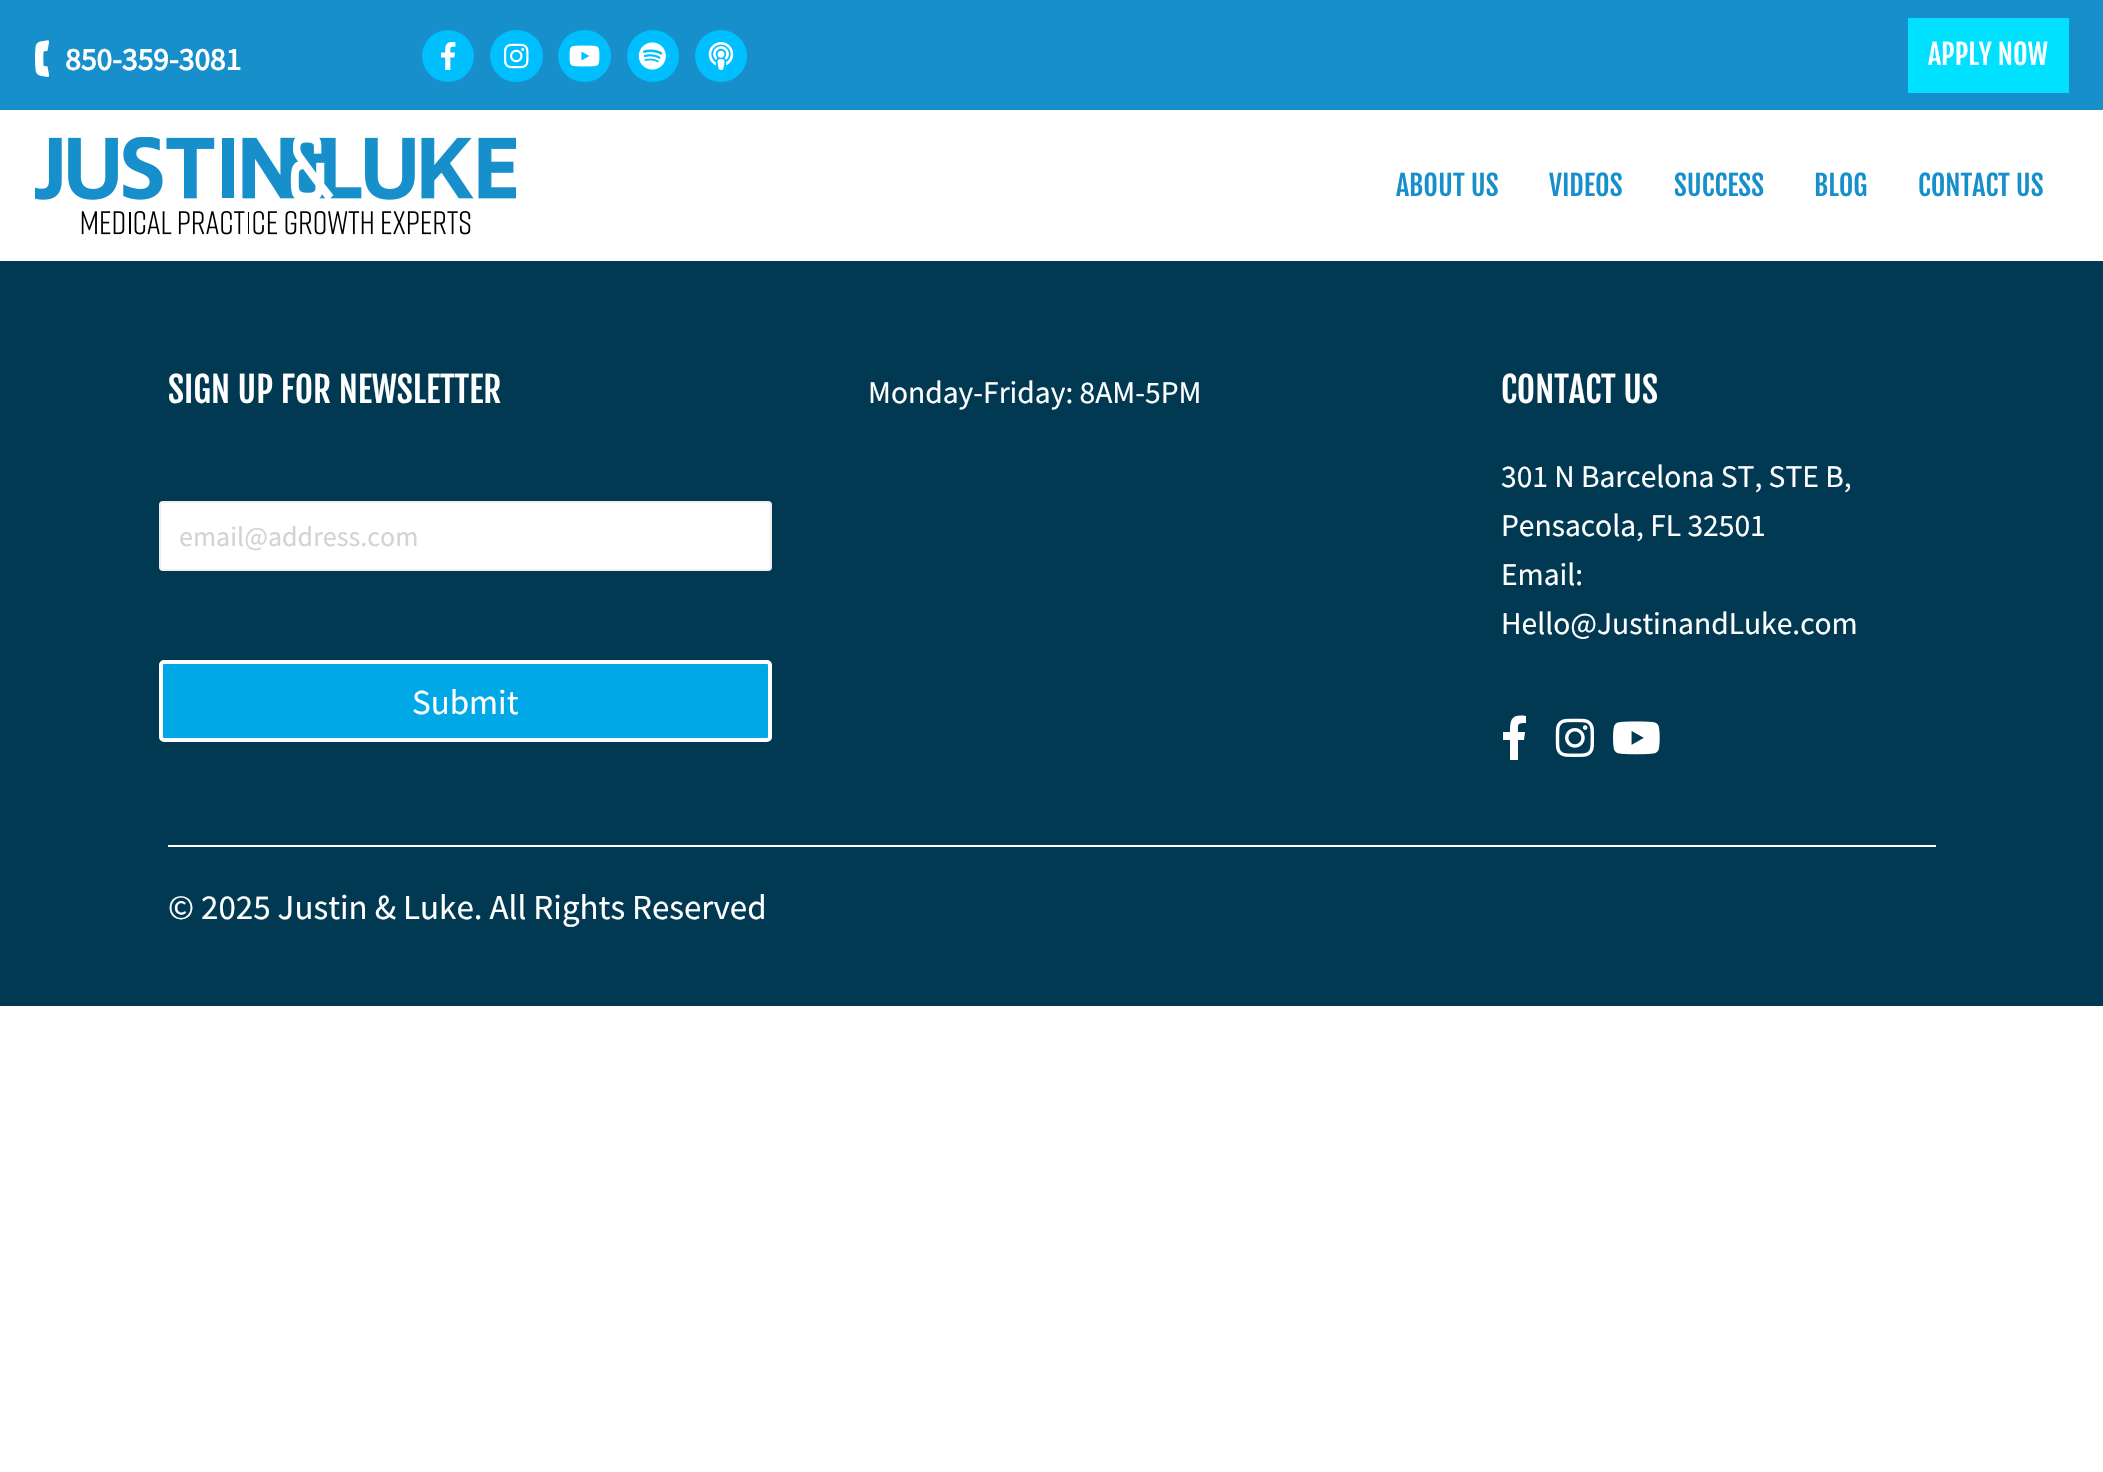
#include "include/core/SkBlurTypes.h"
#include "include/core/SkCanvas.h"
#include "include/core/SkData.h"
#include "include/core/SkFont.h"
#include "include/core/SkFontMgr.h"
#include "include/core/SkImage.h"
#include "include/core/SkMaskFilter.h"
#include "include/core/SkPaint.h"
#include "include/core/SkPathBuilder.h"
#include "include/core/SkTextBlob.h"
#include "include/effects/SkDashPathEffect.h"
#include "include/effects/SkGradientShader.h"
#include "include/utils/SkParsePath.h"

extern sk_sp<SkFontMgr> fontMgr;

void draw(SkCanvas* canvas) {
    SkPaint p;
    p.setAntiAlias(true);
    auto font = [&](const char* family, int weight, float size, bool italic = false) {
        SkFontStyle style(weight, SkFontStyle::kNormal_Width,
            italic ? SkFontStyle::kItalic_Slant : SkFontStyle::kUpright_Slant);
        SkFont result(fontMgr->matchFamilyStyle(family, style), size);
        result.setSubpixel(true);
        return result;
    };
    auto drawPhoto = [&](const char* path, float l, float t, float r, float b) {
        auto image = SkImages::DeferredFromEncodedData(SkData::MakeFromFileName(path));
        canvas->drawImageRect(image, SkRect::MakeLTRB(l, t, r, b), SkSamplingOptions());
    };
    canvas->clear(0xFFFFFFFF);
    p.setColor(0xFF178FCA);
    canvas->drawRect(SkRect::MakeLTRB(0, 0, 2103, 110), p);
    drawPhoto("media/1.png", 35, 40, 49, 77);
    auto font1 = font("Source Sans Pro", 700, 31.5f);
    p.setColor(0xFFFFFFFF);
    canvas->drawString("850-359-3081", 65, 70, font1, p);
    p.setColor(0xFF00BFFF);
    canvas->drawCircle(448, 56, 26, p);
    drawPhoto("media/2.png", 441, 42, 456, 70);
    canvas->drawRoundRect(SkRect::MakeLTRB(490, 30, 543, 82), 26, 26, p);
    drawPhoto("media/3.png", 504, 43, 529, 69);
    canvas->drawRoundRect(SkRect::MakeLTRB(558, 30, 611, 82), 26, 26, p);
    drawPhoto("media/4.png", 569, 45, 600, 67);
    canvas->drawCircle(653, 56, 26, p);
    drawPhoto("media/5.png", 638, 42, 666, 70);
    canvas->drawCircle(721, 56, 26, p);
    drawPhoto("media/6.png", 708, 42, 734, 70);
    p.setColor(0xFF00E1FF);
    canvas->drawRect(SkRect::MakeLTRB(1908, 18, 2069, 93), p);
    auto font2 = font("Fjalla One", 400, 28);
    p.setColor(0xFFFFFFFF);
    canvas->drawString("APPLY NOW", 1928, 65, font2, p);
    drawPhoto("media/7.png", 35, 137, 516, 235);
    p.setColor(0xFF178FCA);
    {
        const struct { const char* s; float x, y; } items[] = {
            {"ABOUT US", 1396, 196},
            {"VIDEOS", 1549, 196},
            {"SUCCESS", 1674, 196},
            {"BLOG", 1814, 196},
            {"CONTACT US", 1918, 196},
        };
        for (auto [s, x, y] : items) {
            canvas->drawString(s, x, y, font2, p);
        }
    }
    p.setColor(0xFF003951);
    canvas->drawRect(SkRect::MakeLTRB(0, 261, 2103, 1006), p);
    auto font3 = font("Fjalla One", 400, 35);
    p.setColor(0xFFFFFFFF);
    canvas->drawString("SIGN UP FOR NEWSLETTER", 168, 403, font3, p);
    canvas->drawRoundRect(SkRect::MakeLTRB(160, 502, 771, 570), 3, 3, p);
    p.setStyle(SkPaint::kStroke_Style);
    p.setStrokeWidth(2);
    p.setColor(0xFFEEEEEE);
    canvas->drawRoundRect(SkRect::MakeLTRB(160, 502, 771, 570), 3, 3, p);
    auto font4 = font("Source Sans Pro", 400, 28);
    p.setStyle(SkPaint::kFill_Style);
    p.setColor(0xFFD3D3D3);
    canvas->drawString("email@address.com", 179, 546, font4, p);
    p.setColor(0xFF00A8E5);
    canvas->drawRoundRect(SkRect::MakeLTRB(161, 662, 770, 740), 3, 3, p);
    p.setStyle(SkPaint::kStroke_Style);
    p.setStrokeWidth(4);
    p.setColor(0xFFFFFFFF);
    canvas->drawRoundRect(SkRect::MakeLTRB(161, 662, 770, 740), 3, 3, p);
    auto font5 = font("Source Sans Pro", 400, 35);
    p.setStyle(SkPaint::kFill_Style);
    canvas->drawString("Submit", 412, 714, font5, p);
    auto font6 = font("Source Sans Pro", 400, 31.5f);
    canvas->drawString("Monday-Friday: 8AM-5PM", 868, 403, font6, p);
    canvas->drawString("CONTACT US", 1501, 403, font3, p);
    {
        const struct { const char* s; float x, y; } items[] = {
            {"301 N Barcelona ST, STE B,", 1501, 487},
            {"Pensacola, FL 32501", 1501, 536},
            {"Email:", 1501, 585},
            {"Hello@JustinandLuke.com", 1501, 634},
        };
        for (auto [s, x, y] : items) {
            canvas->drawString(s, x, y, font6, p);
        }
    }
    canvas->drawPath(SkPathBuilder().moveTo(1510, 760).lineTo(1510, 740).lineTo(1503, 740).lineTo(1503, 732).lineTo(1510, 732).cubicTo(1510, 720, 1511, 714, 1526, 716).lineTo(1526, 723).cubicTo(1517, 723, 1518, 724, 1518, 732).lineTo(1525, 732).lineTo(1524, 740).lineTo(1518, 740).lineTo(1518, 760).close().detach(), p);
    drawPhoto("media/8.png", 1555, 718, 1595, 757);
    drawPhoto("media/9.png", 1613, 721, 1660, 755);
    canvas->drawRect(SkRect::MakeLTRB(168, 845, 1936, 847), p);
    canvas->drawString("© 2025 Justin & Luke. All Rights Reserved", 168, 919, font5, p);
}
